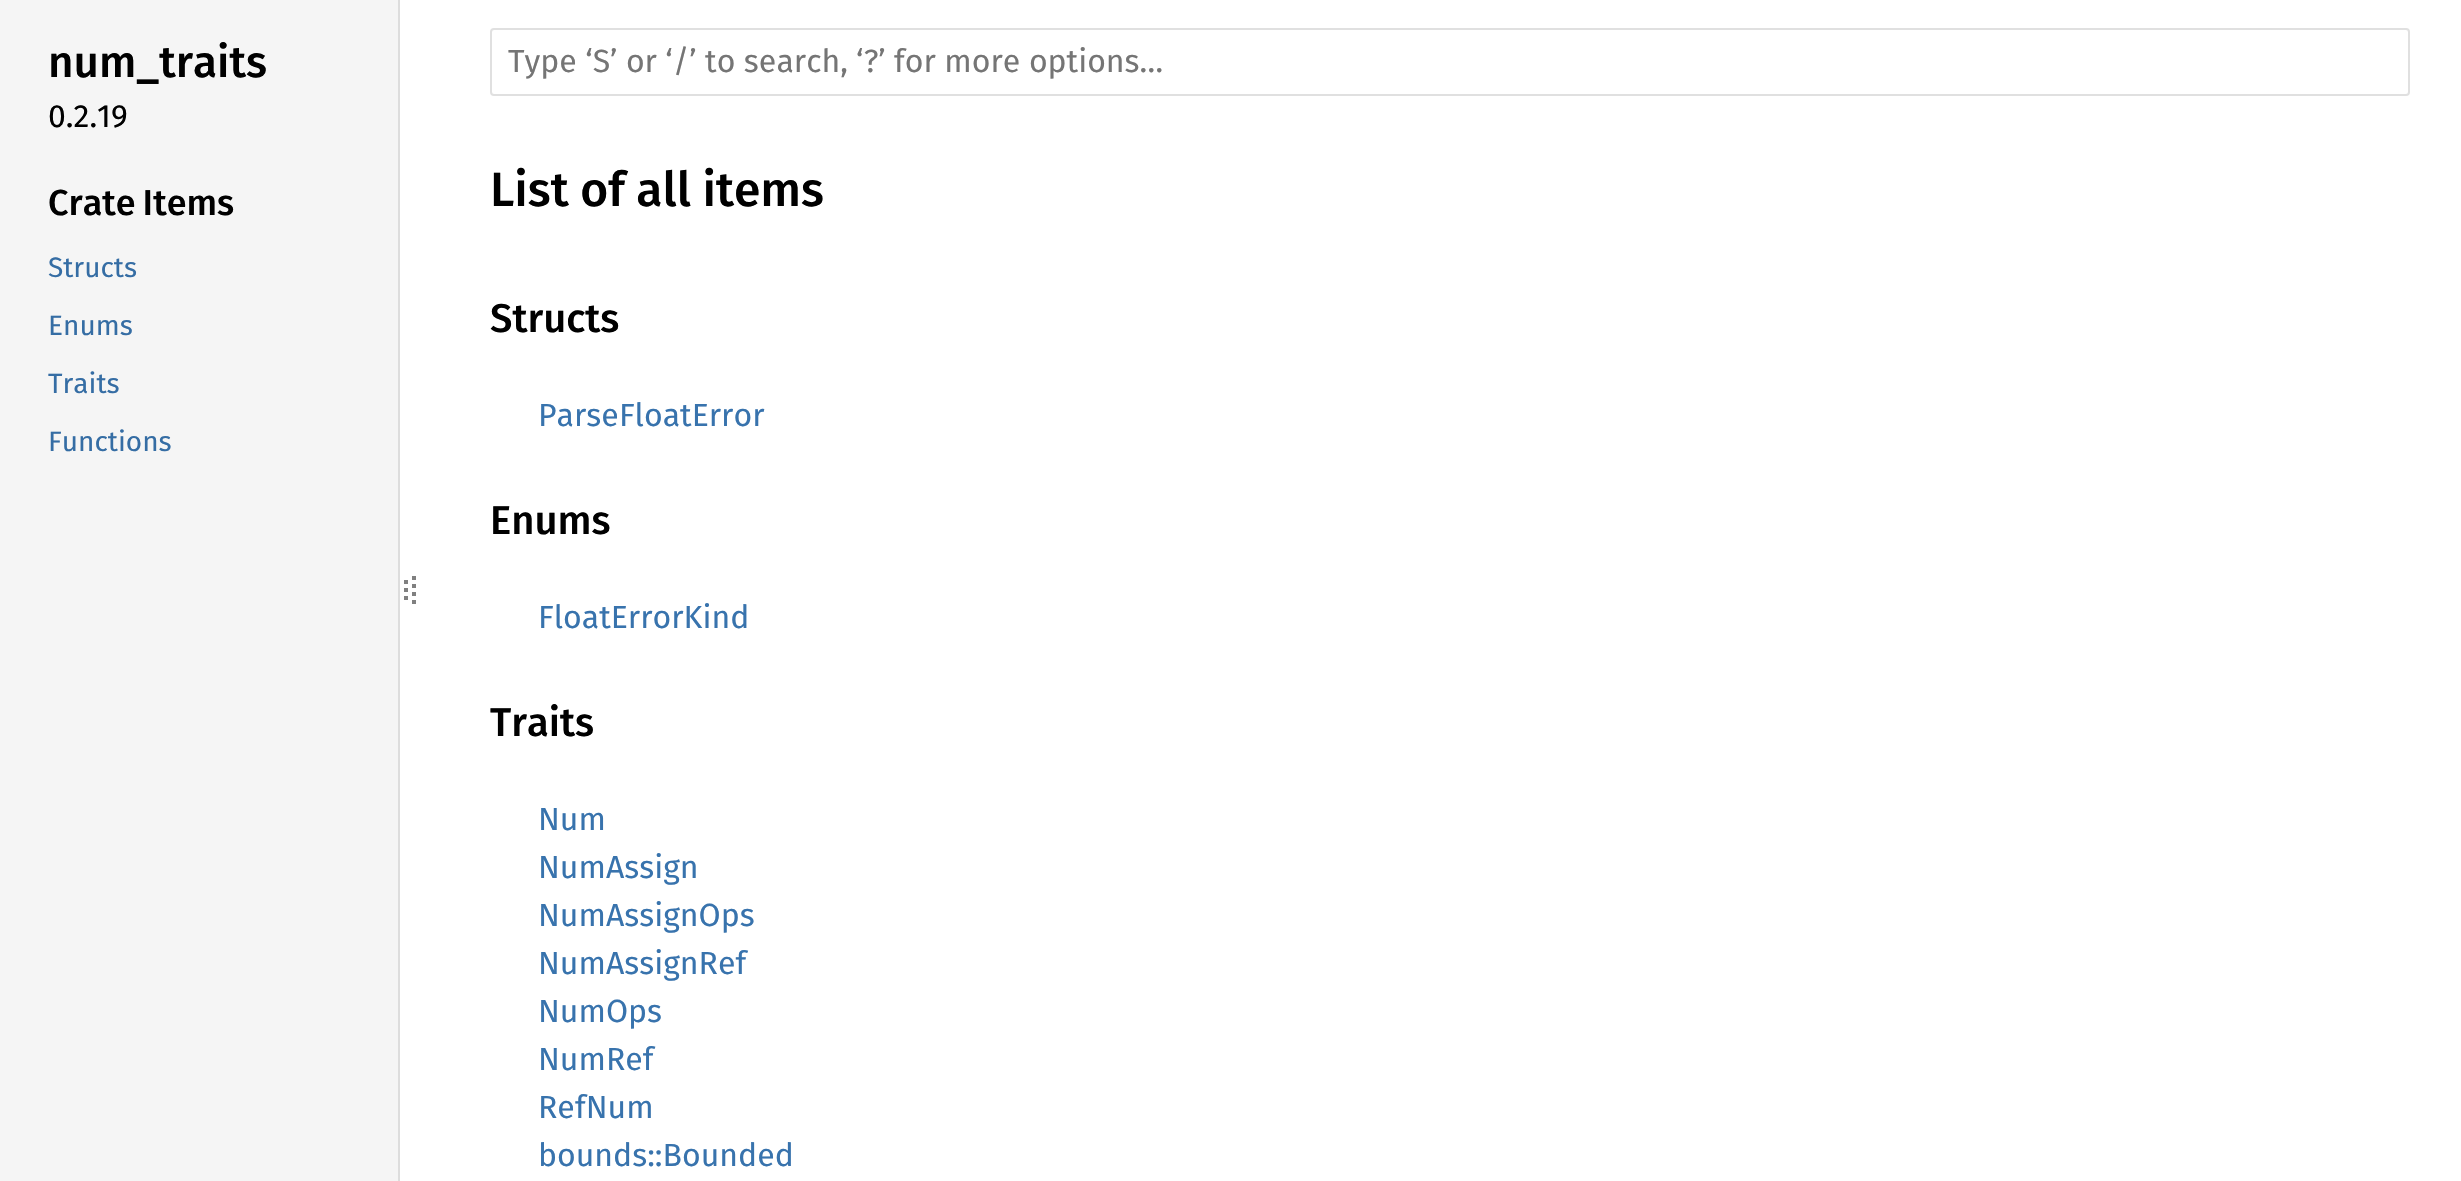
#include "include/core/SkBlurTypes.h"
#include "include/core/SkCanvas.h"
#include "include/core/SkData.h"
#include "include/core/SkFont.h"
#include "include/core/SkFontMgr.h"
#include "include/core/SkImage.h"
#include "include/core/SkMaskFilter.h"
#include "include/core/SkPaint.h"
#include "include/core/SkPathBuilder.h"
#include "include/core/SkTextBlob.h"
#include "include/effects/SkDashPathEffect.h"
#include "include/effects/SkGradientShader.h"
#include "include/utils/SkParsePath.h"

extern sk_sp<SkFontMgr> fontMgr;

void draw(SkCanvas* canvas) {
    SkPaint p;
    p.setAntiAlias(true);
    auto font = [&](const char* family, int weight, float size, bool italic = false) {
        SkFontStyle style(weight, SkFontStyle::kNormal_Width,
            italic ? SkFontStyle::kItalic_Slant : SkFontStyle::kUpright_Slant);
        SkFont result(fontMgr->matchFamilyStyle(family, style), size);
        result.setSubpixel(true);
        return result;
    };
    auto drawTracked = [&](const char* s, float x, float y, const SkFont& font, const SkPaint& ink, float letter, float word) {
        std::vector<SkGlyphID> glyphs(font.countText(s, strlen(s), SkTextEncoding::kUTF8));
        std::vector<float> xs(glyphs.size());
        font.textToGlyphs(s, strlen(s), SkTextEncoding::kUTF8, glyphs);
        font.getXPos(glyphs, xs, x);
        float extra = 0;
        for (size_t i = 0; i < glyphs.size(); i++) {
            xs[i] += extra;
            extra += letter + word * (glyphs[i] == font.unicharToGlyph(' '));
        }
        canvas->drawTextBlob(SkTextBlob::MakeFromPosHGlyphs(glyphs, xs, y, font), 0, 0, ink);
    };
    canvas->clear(0xFFFFFFFF);
    p.setColor(0xFFF5F5F5);
    canvas->drawRect(SkRect::MakeLTRB(0, 0, 398, 1181), p);
    p.setColor(0xFFDDDDDD);
    canvas->drawRect(SkRect::MakeLTRB(398, 0, 400, 1181), p);
    auto font1 = font("Fira Sans", 500, 44);
    p.setColor(0xFF000000);
    canvas->drawString("num_traits", 48, 77, font1, p);
    auto font2 = font("Fira Sans", 400, 32);
    canvas->drawString("0.2.19", 48, 127, font2, p);
    auto font3 = font("Fira Sans", 500, 36);
    drawTracked("Crate Items", 48, 215, font3, p, 0, -2);
    auto font4 = font("Fira Sans", 400, 28);
    p.setColor(0xFF356DA4);
    {
        const struct { const char* s; float x, y; } items[] = {
            {"Structs", 48, 277},
            {"Enums", 48, 335},
            {"Traits", 48, 393},
            {"Functions", 48, 451},
        };
        for (auto [s, x, y] : items) {
            canvas->drawString(s, x, y, font4, p);
        }
    }
    p.setStyle(SkPaint::kStroke_Style);
    p.setStrokeWidth(4);
    p.setColor(0xFF808080);
    canvas->drawPath(SkPathBuilder().moveTo(406, 580).lineTo(406, 584).moveTo(406, 588).lineTo(406, 592).moveTo(406, 596).lineTo(406, 600).detach(), p);
    p.setPathEffect(SkDashPathEffect::Make({{4, 4}}, 0));
    canvas->drawPath(SkPathBuilder().moveTo(414, 576).lineTo(414, 608).detach(), p);
    p.setPathEffect(nullptr);
    p.setStrokeWidth(2);
    p.setColor(0xFFE0E0E0);
    canvas->drawRoundRect(SkRect::MakeLTRB(491, 29, 2409, 95), 3, 3, p);
    p.setStyle(SkPaint::kFill_Style);
    p.setColor(0xFF757575);
    canvas->drawString("Type ‘S’ or ‘/’ to search, ‘?’ for more options…", 508, 72, font2, p);
    auto font5 = font("Fira Sans", 500, 48);
    p.setColor(0xFF000000);
    drawTracked("List of all items", 490, 206, font5, p, 0, -0.5f);
    auto font6 = font("Fira Sans", 500, 40);
    canvas->drawString("Structs", 490, 332, font6, p);
    p.setColor(0xFF3873AD);
    canvas->drawString("ParseFloatError", 538, 426, font2, p);
    p.setColor(0xFF000000);
    canvas->drawString("Enums", 490, 534, font6, p);
    p.setColor(0xFF3873AD);
    canvas->drawString("FloatErrorKind", 538, 628, font2, p);
    p.setColor(0xFF000000);
    canvas->drawString("Traits", 490, 736, font6, p);
    p.setColor(0xFF3873AD);
    {
        const struct { const char* s; float x, y; } items[] = {
            {"Num", 538, 830},
            {"NumAssign", 538, 878},
            {"NumAssignOps", 538, 926},
            {"NumAssignRef", 538, 974},
            {"NumOps", 538, 1022},
            {"NumRef", 538, 1070},
            {"RefNum", 538, 1118},
            {"bounds::Bounded", 538, 1166},
        };
        for (auto [s, x, y] : items) {
            canvas->drawString(s, x, y, font2, p);
        }
    }
}
